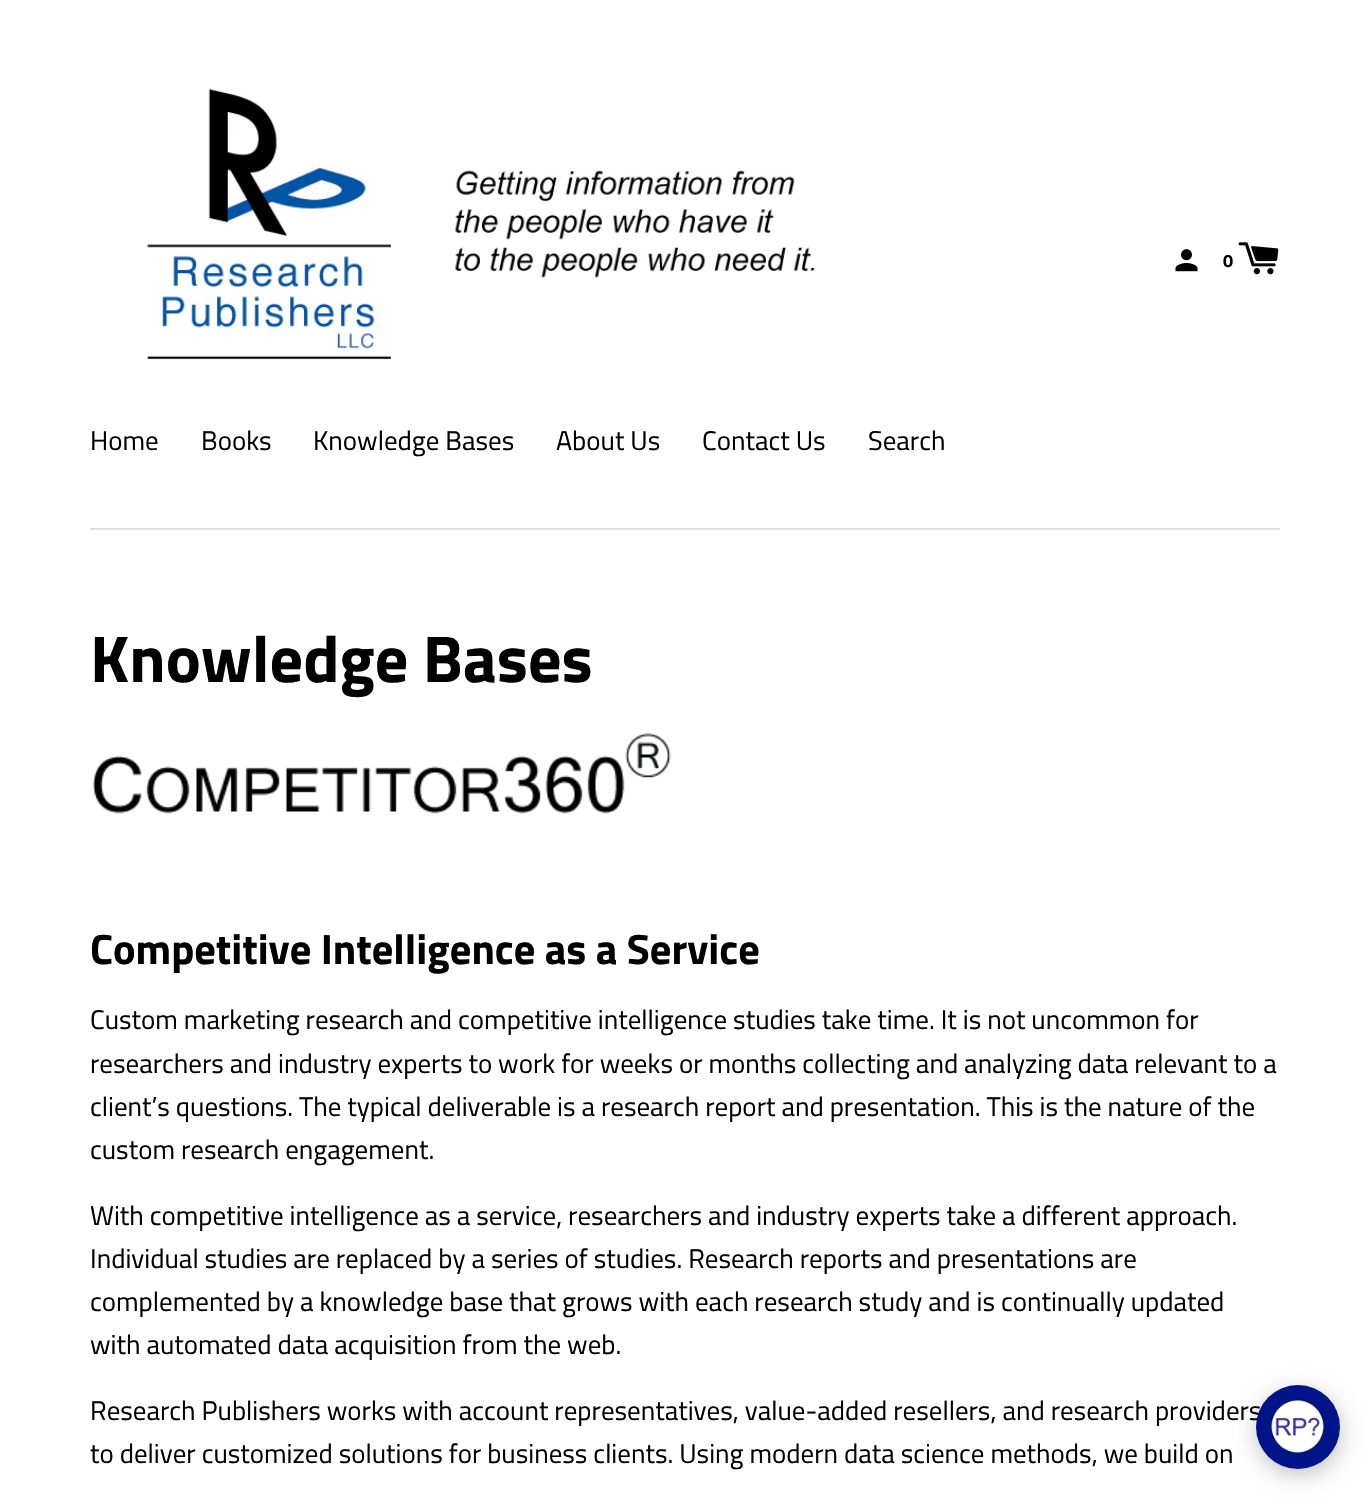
#include "include/core/SkBlurTypes.h"
#include "include/core/SkCanvas.h"
#include "include/core/SkData.h"
#include "include/core/SkFont.h"
#include "include/core/SkFontMgr.h"
#include "include/core/SkImage.h"
#include "include/core/SkMaskFilter.h"
#include "include/core/SkPaint.h"
#include "include/core/SkPathBuilder.h"
#include "include/core/SkTextBlob.h"
#include "include/effects/SkDashPathEffect.h"
#include "include/effects/SkGradientShader.h"
#include "include/utils/SkParsePath.h"

extern sk_sp<SkFontMgr> fontMgr;

void draw(SkCanvas* canvas) {
    SkPaint p;
    p.setAntiAlias(true);
    auto font = [&](const char* family, int weight, float size, bool italic = false) {
        SkFontStyle style(weight, SkFontStyle::kNormal_Width,
            italic ? SkFontStyle::kItalic_Slant : SkFontStyle::kUpright_Slant);
        SkFont result(fontMgr->matchFamilyStyle(family, style), size);
        result.setSubpixel(true);
        return result;
    };
    auto drawPhoto = [&](const char* path, float l, float t, float r, float b) {
        auto image = SkImages::DeferredFromEncodedData(SkData::MakeFromFileName(path));
        canvas->drawImageRect(image, SkRect::MakeLTRB(l, t, r, b), SkSamplingOptions());
    };
    canvas->clear(0xFFFFFFFF);
    p.setColor(0xFFDFDFDF);
    canvas->drawRect(SkRect::MakeLTRB(90, 528, 1280, 530), p);
    drawPhoto("media/1.png", 1175, 249, 1198, 272);
    auto font1 = font("Titillium Web", 700, 18);
    p.setColor(0xFF000000);
    canvas->drawString("0", 1223, 267, font1, p);
    drawPhoto("media/2.png", 1238, 242, 1279, 275);
    drawPhoto("media/3.png", 147, 88, 815, 360);
    auto font2 = font("Titillium Web", 400, 27);
    {
        const struct { const char* s; float x, y; } items[] = {
            {"Home", 90, 450},
            {"Books", 201, 450},
            {"Knowledge Bases", 313, 450},
            {"About Us", 556, 450},
            {"Contact Us", 702, 450},
            {"Search", 868, 450},
        };
        for (auto [s, x, y] : items) {
            canvas->drawString(s, x, y, font2, p);
        }
    }
    auto font3 = font("Titillium Web", 700, 66);
    canvas->drawString("Knowledge Bases", 90, 682, font3, p);
    drawPhoto("media/4.png", 92, 733, 671, 814);
    auto font4 = font("Titillium Web", 700, 42.4f);
    canvas->drawString("Competitive Intelligence as a Service", 90, 964, font4, p);
    {
        const struct { const char* s; float x, y; } items[] = {
            {"Custom marketing research and competitive intelligence studies take time. It is not uncommon for", 90, 1029},
            {"researchers and industry experts to work for weeks or months collecting and analyzing data relevant to a", 90, 1073},
            {"client’s questions. The typical deliverable is a research report and presentation. This is the nature of the", 90, 1116},
            {"custom research engagement.", 90, 1159},
            {"With competitive intelligence as a service, researchers and industry experts take a different approach.", 90, 1225},
            {"Individual studies are replaced by a series of studies. Research reports and presentations are", 90, 1268},
            {"complemented by a knowledge base that grows with each research study and is continually updated", 90, 1311},
            {"with automated data acquisition from the web.", 90, 1354},
            {"Research Publishers works with account representatives, value-added resellers, and research providers", 90, 1420},
            {"to deliver customized solutions for business clients. Using modern data science methods, we build on", 90, 1463},
        };
        for (auto [s, x, y] : items) {
            canvas->drawString(s, x, y, font2, p);
        }
    }
    p.setColor(0x3D000000);
    p.setMaskFilter(SkMaskFilter::MakeBlur(kNormal_SkBlurStyle, 11));
    canvas->drawRoundRect(SkRect::MakeLTRB(1257, 1391, 1341, 1475), 42, 42, p);
    p.setMaskFilter(nullptr);
    p.setColor(0xFF001489);
    canvas->drawCircle(1298, 1427, 42, p);
    drawPhoto("media/5.png", 1270, 1399, 1325, 1454);
}
